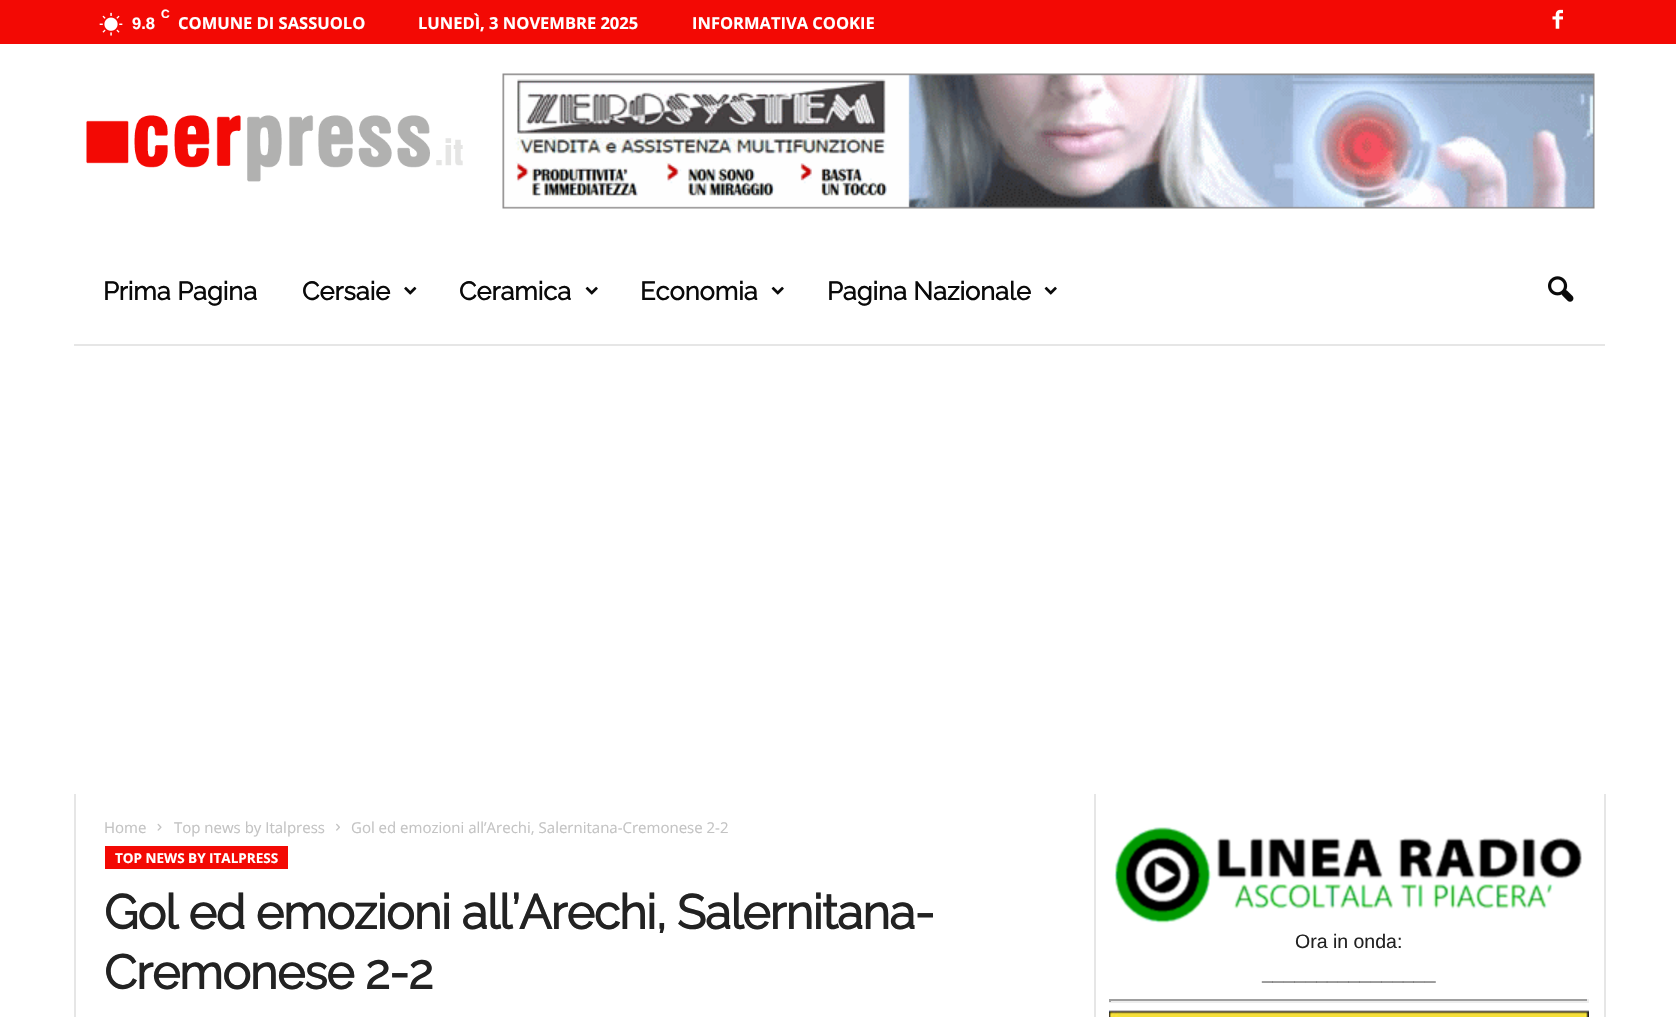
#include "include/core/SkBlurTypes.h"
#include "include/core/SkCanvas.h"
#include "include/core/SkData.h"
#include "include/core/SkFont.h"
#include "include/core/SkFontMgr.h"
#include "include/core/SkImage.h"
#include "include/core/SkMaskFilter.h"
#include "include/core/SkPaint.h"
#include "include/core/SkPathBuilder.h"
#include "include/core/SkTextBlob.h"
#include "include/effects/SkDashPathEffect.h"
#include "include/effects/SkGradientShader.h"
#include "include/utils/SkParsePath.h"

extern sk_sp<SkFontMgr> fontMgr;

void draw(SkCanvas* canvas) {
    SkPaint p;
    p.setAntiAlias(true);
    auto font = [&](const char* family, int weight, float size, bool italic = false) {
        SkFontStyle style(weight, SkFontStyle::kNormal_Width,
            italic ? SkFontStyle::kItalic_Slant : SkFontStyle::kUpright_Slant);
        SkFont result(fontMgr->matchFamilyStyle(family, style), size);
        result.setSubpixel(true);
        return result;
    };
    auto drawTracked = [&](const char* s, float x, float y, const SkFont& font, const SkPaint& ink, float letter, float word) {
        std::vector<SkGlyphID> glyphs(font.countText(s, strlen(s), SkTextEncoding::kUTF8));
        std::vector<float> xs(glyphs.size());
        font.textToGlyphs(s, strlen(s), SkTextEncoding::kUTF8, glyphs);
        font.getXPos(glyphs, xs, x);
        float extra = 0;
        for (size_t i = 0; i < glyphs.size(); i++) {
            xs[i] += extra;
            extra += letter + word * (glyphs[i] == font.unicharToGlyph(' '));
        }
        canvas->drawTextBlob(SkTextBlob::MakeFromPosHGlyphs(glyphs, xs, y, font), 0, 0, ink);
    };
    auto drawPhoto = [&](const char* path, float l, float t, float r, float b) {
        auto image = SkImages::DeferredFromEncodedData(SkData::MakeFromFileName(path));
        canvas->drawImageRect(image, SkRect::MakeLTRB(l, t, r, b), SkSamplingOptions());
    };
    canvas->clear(0xFFFFFFFF);
    p.setColor(0xFFF30904);
    canvas->drawRect(SkRect::MakeLTRB(0, 0, 1676, 44), p);
    drawPhoto("media/1.png", 99, 12, 123, 36);
    auto font1 = font("Liberation Sans", 700, 12);
    p.setColor(0xFFFFFFFF);
    canvas->drawString("C", 161, 18, font1, p);
    auto font2 = font("Liberation Sans", 700, 16.5f);
    canvas->drawString("9.8", 132, 29, font2, p);
    auto font3 = font("Open Sans", 700, 16.5f);
    {
        const struct { const char* s; float x, y; } items[] = {
            {"COMUNE DI SASSUOLO", 178, 29},
            {"LUNEDÌ, 3 NOVEMBRE 2025", 418, 29},
            {"INFORMATIVA COOKIE", 692, 29},
        };
        for (auto [s, x, y] : items) {
            canvas->drawString(s, x, y, font3, p);
        }
    }
    drawPhoto("media/2.png", 1552, 9, 1563, 29);
    drawPhoto("media/3.png", 86, 115, 463, 182);
    drawPhoto("media/4.png", 502, 73, 1595, 209);
    p.setColor(0xFFE6E6E6);
    canvas->drawRect(SkRect::MakeLTRB(74, 344, 1605, 346), p);
    auto font4 = font("Raleway", 700, 25.5f);
    p.setColor(0xFF0A0A0A);
    canvas->drawString("Prima Pagina", 103, 300, font4, p);
    canvas->drawString("Cersaie", 302, 300, font4, p);
    drawPhoto("media/5.png", 404, 286, 417, 295);
    canvas->drawString("Ceramica", 459, 300, font4, p);
    drawPhoto("media/6.png", 585, 286, 598, 295);
    canvas->drawString("Economia", 640, 300, font4, p);
    drawPhoto("media/6.png", 771, 286, 784, 295);
    canvas->drawString("Pagina Nazionale", 827, 300, font4, p);
    drawPhoto("media/6.png", 1044, 286, 1057, 295);
    drawPhoto("media/7.png", 1548, 276, 1574, 302);
    p.setColor(0xFFE6E6E6);
    canvas->drawRect(SkRect::MakeLTRB(74, 794, 76, 1017), p);
    auto font5 = font("Open Sans", 400, 15);
    p.setColor(0xFFC3C3C3);
    canvas->drawString("Home", 104, 833, font5, p);
    drawPhoto("media/8.png", 157, 823, 162, 831);
    canvas->drawString("Top news by Italpress", 174, 833, font5, p);
    drawPhoto("media/9.png", 336, 823, 340, 831);
    canvas->drawString("Gol ed emozioni all’Arechi, Salernitana-Cremonese 2-2", 351, 833, font5, p);
    p.setColor(0xFFF30904);
    canvas->drawRect(SkRect::MakeLTRB(105, 846, 288, 869), p);
    auto font6 = font("Open Sans", 700, 13.5f);
    p.setColor(0xFFFFFFFF);
    canvas->drawString("TOP NEWS BY ITALPRESS", 115, 863, font6, p);
    auto font7 = font("Raleway", 700, 48);
    p.setColor(0xFF222222);
    drawTracked("Gol ed emozioni all’Arechi, Salernitana-", 104, 929, font7, p, -0.95f, 0);
    drawTracked("Cremonese 2-2", 104, 989, font7, p, -0.95f, 0);
    p.setColor(0xFFE6E6E6);
    canvas->drawRect(SkRect::MakeLTRB(1094, 794, 1096, 1017), p);
    drawPhoto("media/10.png", 1114, 827, 1582, 924);
    auto font8 = font("Liberation Sans", 400, 19.5f);
    p.setColor(0xFF222222);
    canvas->drawString("Ora in onda:", 1295, 948, font8, p);
    auto font9 = font("Liberation Sans", 700, 19.5f);
    canvas->drawString("________________", 1262, 980, font9, p);
    {
        const struct { float l, t, r, b; SkColor color; } items[] = {
            {1109, 999, 1589, 1001, 0xFF9F9F9F},
            {1587, 999, 1589, 1002, 0xFFEEEEEE},
            {1109, 1001, 1589, 1003, 0xFFEEEEEE},
            {1109, 999, 1111, 1002, 0xFF9F9F9F},
        };
        for (auto [l, t, r, b, color] : items) {
            p.setColor(color);
            canvas->drawRect(SkRect::MakeLTRB(l, t, r, b), p);
        }
    }
    drawPhoto("media/11.png", 1109, 1010, 1589, 1017);
    p.setColor(0xFFE6E6E6);
    canvas->drawRect(SkRect::MakeLTRB(1604, 794, 1606, 1017), p);
}
